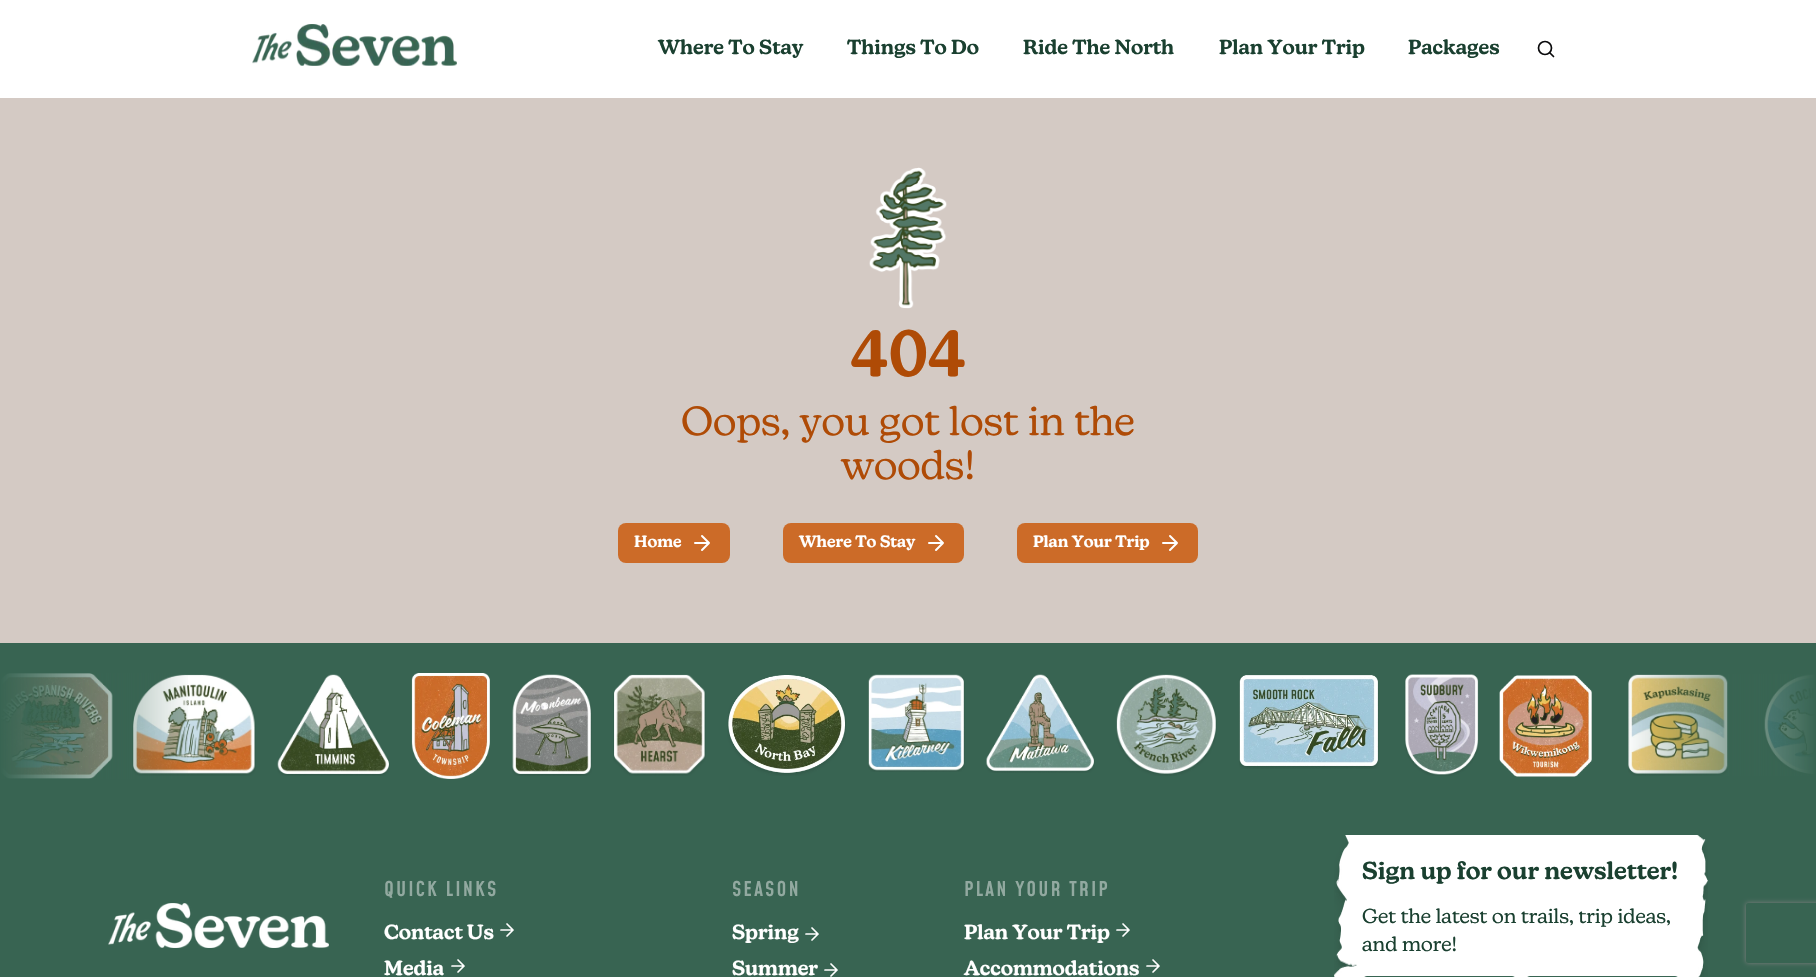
#include "include/core/SkBlurTypes.h"
#include "include/core/SkCanvas.h"
#include "include/core/SkData.h"
#include "include/core/SkFont.h"
#include "include/core/SkFontMgr.h"
#include "include/core/SkImage.h"
#include "include/core/SkMaskFilter.h"
#include "include/core/SkPaint.h"
#include "include/core/SkPathBuilder.h"
#include "include/core/SkTextBlob.h"
#include "include/effects/SkDashPathEffect.h"
#include "include/effects/SkGradientShader.h"
#include "include/utils/SkParsePath.h"

extern sk_sp<SkFontMgr> fontMgr;

void draw(SkCanvas* canvas) {
    SkPaint p;
    p.setAntiAlias(true);
    auto font = [&](const char* family, int weight, float size, bool italic = false) {
        SkFontStyle style(weight, SkFontStyle::kNormal_Width,
            italic ? SkFontStyle::kItalic_Slant : SkFontStyle::kUpright_Slant);
        SkFont result(fontMgr->matchFamilyStyle(family, style), size);
        result.setSubpixel(true);
        return result;
    };
    auto drawTracked = [&](const char* s, float x, float y, const SkFont& font, const SkPaint& ink, float letter, float word) {
        std::vector<SkGlyphID> glyphs(font.countText(s, strlen(s), SkTextEncoding::kUTF8));
        std::vector<float> xs(glyphs.size());
        font.textToGlyphs(s, strlen(s), SkTextEncoding::kUTF8, glyphs);
        font.getXPos(glyphs, xs, x);
        float extra = 0;
        for (size_t i = 0; i < glyphs.size(); i++) {
            xs[i] += extra;
            extra += letter + word * (glyphs[i] == font.unicharToGlyph(' '));
        }
        canvas->drawTextBlob(SkTextBlob::MakeFromPosHGlyphs(glyphs, xs, y, font), 0, 0, ink);
    };
    auto drawPhoto = [&](const char* path, float l, float t, float r, float b) {
        auto image = SkImages::DeferredFromEncodedData(SkData::MakeFromFileName(path));
        canvas->drawImageRect(image, SkRect::MakeLTRB(l, t, r, b), SkSamplingOptions());
    };
    canvas->clear(0xFFD4CAC4);
    p.setColor(0xFFFFFFFF);
    canvas->drawRect(SkRect::MakeLTRB(0, 0, 1816, 98), p);
    drawPhoto("media/1.png", 252, 24, 457, 66);
    auto font1 = font("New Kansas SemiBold", 600, 20);
    p.setColor(0xFF1A4030);
    {
        const struct { const char* s; float x, y; } items[] = {
            {"Where To Stay", 658, 54},
            {"Things To Do", 847, 54},
            {"Ride The North", 1023, 54},
            {"Plan Your Trip", 1219, 54},
            {"Packages", 1408, 54},
        };
        for (auto [s, x, y] : items) {
            canvas->drawString(s, x, y, font1, p);
        }
    }
    p.setStyle(SkPaint::kStroke_Style);
    p.setStrokeWidth(1.7f);
    p.setColor(0xFF09090B);
    canvas->drawCircle(1545, 48, 6.5f, p);
    p.setStrokeCap(SkPaint::kRound_Cap);
    p.setStrokeJoin(SkPaint::kRound_Join);
    canvas->drawPath(SkPathBuilder().moveTo(1553.5f, 56.5f).lineTo(1550, 53).detach(), p);
    drawPhoto("media/2.png", 869, 167, 947, 309);
    auto font2 = font("New Kansas SemiBold", 600, 64);
    p.setStyle(SkPaint::kFill_Style);
    p.setColor(0xFFAF4B06);
    canvas->drawString("404", 851, 376, font2, p);
    auto font3 = font("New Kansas", 400, 40);
    canvas->drawString("Oops, you got lost in the", 681, 435, font3, p);
    canvas->drawString("woods!", 841, 479, font3, p);
    p.setColor(0xFFCC6B28);
    canvas->drawRoundRect(SkRect::MakeLTRB(618, 523, 730, 563), 8, 8, p);
    auto font4 = font("New Kansas SemiBold", 600, 16);
    p.setColor(0xFFFFFFFF);
    canvas->drawString("Home", 634, 547, font4, p);
    p.setStyle(SkPaint::kStroke_Style);
    p.setStrokeWidth(2);
    canvas->drawPath(SkPathBuilder().moveTo(695, 543).lineTo(709, 543).moveTo(702, 536).lineTo(709, 543).lineTo(702, 550).detach(), p);
    p.setStyle(SkPaint::kFill_Style);
    p.setColor(0xFFCC6B28);
    canvas->drawRoundRect(SkRect::MakeLTRB(783, 523, 964, 563), 8, 8, p);
    p.setColor(0xFFFFFFFF);
    canvas->drawString("Where To Stay", 799, 547, font4, p);
    p.setStyle(SkPaint::kStroke_Style);
    canvas->drawPath(SkPathBuilder().moveTo(929, 543).lineTo(943, 543).moveTo(936, 536).lineTo(943, 543).lineTo(936, 550).detach(), p);
    p.setStyle(SkPaint::kFill_Style);
    p.setColor(0xFFCC6B28);
    canvas->drawRoundRect(SkRect::MakeLTRB(1017, 523, 1198, 563), 8, 8, p);
    p.setColor(0xFFFFFFFF);
    canvas->drawString("Plan Your Trip", 1033, 547, font4, p);
    p.setStyle(SkPaint::kStroke_Style);
    canvas->drawPath(SkPathBuilder().moveTo(1163, 543).lineTo(1177, 543).moveTo(1170, 536).lineTo(1177, 543).lineTo(1170, 550).detach(), p);
    p.setStyle(SkPaint::kFill_Style);
    p.setColor(0xFF386452);
    canvas->drawRect(SkRect::MakeLTRB(0, 643, 1816, 977), p);
    drawPhoto("media/3.png", 1, 673, 113, 779);
    drawPhoto("media/4.png", 132, 674, 256, 776);
    drawPhoto("media/5.png", 277, 674, 390, 776);
    drawPhoto("media/6.png", 411, 673, 490, 779);
    drawPhoto("media/7.png", 512, 674, 592, 776);
    drawPhoto("media/8.png", 613, 674, 706, 776);
    drawPhoto("media/9.png", 727, 675, 846, 776);
    drawPhoto("media/10.png", 868, 674, 965, 772);
    drawPhoto("media/11.png", 986, 674, 1095, 773);
    drawPhoto("media/12.png", 1116, 674, 1217, 776);
    drawPhoto("media/13.png", 1239, 675, 1379, 769);
    drawPhoto("media/14.png", 1404, 674, 1479, 776);
    drawPhoto("media/15.png", 1499, 675, 1592, 777);
    drawPhoto("media/16.png", 1628, 674, 1728, 776);
    drawPhoto("media/17.png", 1764, 674, 1815, 776);
    {
        const SkColor colors[] = {0xFF386452, 0x00386452};
        const float stops[] = {0, 1};
        const SkPoint ends[] = {{0, 726}, {192, 726}};
        p.setShader(SkGradientShader::MakeLinear(ends, colors, stops, 2, SkTileMode::kClamp));
        p.setAlpha(255);
    }
    canvas->drawRect(SkRect::MakeLTRB(1, 673, 188, 779), p);
    {
        const SkColor colors[] = {0x00386452, 0xFF386452};
        const float stops[] = {0, 1};
        const SkPoint ends[] = {{1624, 726}, {1816, 726}};
        p.setShader(SkGradientShader::MakeLinear(ends, colors, stops, 2, SkTileMode::kClamp));
        p.setAlpha(255);
    }
    canvas->drawRect(SkRect::MakeLTRB(1628, 674, 1815, 776), p);
    drawPhoto("media/18.png", 108, 903, 329, 948);
    auto font5 = font("Mohave", 600, 20);
    p.setShader(nullptr);
    p.setColor(0xFF92A9A0);
    drawTracked("QUICK LINKS", 384, 896, font5, p, 2, 0);
    p.setStyle(SkPaint::kStroke_Style);
    p.setStrokeWidth(1.7f);
    p.setColor(0xFFFFFFFF);
    canvas->drawPath(SkPathBuilder().moveTo(501, 930).lineTo(513, 930).moveTo(507, 924).lineTo(513, 930).lineTo(507, 936).moveTo(452, 966).lineTo(464, 966).moveTo(458, 960).lineTo(464, 966).lineTo(458, 972).detach(), p);
    p.setStyle(SkPaint::kFill_Style);
    canvas->drawString("Contact Us", 384, 939, font1, p);
    canvas->drawString("Media", 384, 975, font1, p);
    p.setColor(0xFF92A9A0);
    drawTracked("SEASON", 732, 896, font5, p, 2, 0);
    p.setColor(0xFFFFFFFF);
    canvas->drawString("Spring", 732, 939, font1, p);
    p.setStyle(SkPaint::kStroke_Style);
    canvas->drawPath(SkPathBuilder().moveTo(806, 934).lineTo(818, 934).moveTo(812, 928).lineTo(818, 934).lineTo(812, 940).moveTo(825, 970).lineTo(837, 970).moveTo(831, 964).lineTo(837, 970).lineTo(831, 976).detach(), p);
    p.setStyle(SkPaint::kFill_Style);
    canvas->drawString("Summer", 732, 975, font1, p);
    p.setColor(0xFF92A9A0);
    drawTracked("PLAN YOUR TRIP", 964, 896, font5, p, 2, 0);
    p.setColor(0xFFFFFFFF);
    canvas->drawString("Plan Your Trip", 964, 939, font1, p);
    p.setStyle(SkPaint::kStroke_Style);
    canvas->drawPath(SkPathBuilder().moveTo(1117, 930).lineTo(1129, 930).moveTo(1123, 924).lineTo(1129, 930).lineTo(1123, 936).moveTo(1147, 966).lineTo(1159, 966).moveTo(1153, 960).lineTo(1159, 966).lineTo(1153, 972).detach(), p);
    p.setStyle(SkPaint::kFill_Style);
    canvas->drawString("Accommodations", 964, 975, font1, p);
    drawPhoto("media/19.png", 1334, 835, 1708, 977);
    auto font6 = font("New Kansas SemiBold", 600, 24);
    p.setColor(0xFF1A4030);
    canvas->drawString("Sign up for our newsletter!", 1362, 879, font6, p);
    auto font7 = font("New Kansas", 400, 20);
    canvas->drawString("Get the latest on trails, trip ideas,", 1362, 923, font7, p);
    canvas->drawString("and more!", 1362, 951, font7, p);
    p.setStyle(SkPaint::kStroke_Style);
    p.setStrokeWidth(1);
    p.setStrokeCap(SkPaint::kButt_Cap);
    p.setStrokeJoin(SkPaint::kMiter_Join);
    p.setColor(0xFF386452);
    canvas->drawRoundRect(SkRect::MakeLTRB(1362.5f, 976.5f, 1516.5f, 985.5f), 7.5f, 7.5f, p);
    canvas->drawRoundRect(SkRect::MakeLTRB(1525.5f, 976.5f, 1679.5f, 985.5f), 7.5f, 7.5f, p);
    canvas->save();
    canvas->clipPath(SkPathBuilder(SkPathFillType::kEvenOdd).moveTo(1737, 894).lineTo(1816, 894).lineTo(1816, 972).lineTo(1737, 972).close().moveTo(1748, 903).lineTo(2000, 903).cubicTo(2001, 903, 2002, 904, 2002, 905).lineTo(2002, 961).cubicTo(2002, 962, 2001, 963, 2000, 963).lineTo(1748, 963).cubicTo(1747, 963, 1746, 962, 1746, 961).lineTo(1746, 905).cubicTo(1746, 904, 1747, 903, 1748, 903).close().detach(), true);
    p.setStyle(SkPaint::kFill_Style);
    p.setColor(0xFF808080);
    p.setMaskFilter(SkMaskFilter::MakeBlur(kNormal_SkBlurStyle, 2.5f));
    canvas->drawRoundRect(SkRect::MakeLTRB(1746, 903, 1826, 963), 2, 2, p);
    p.setMaskFilter(nullptr);
    canvas->restore();
}
